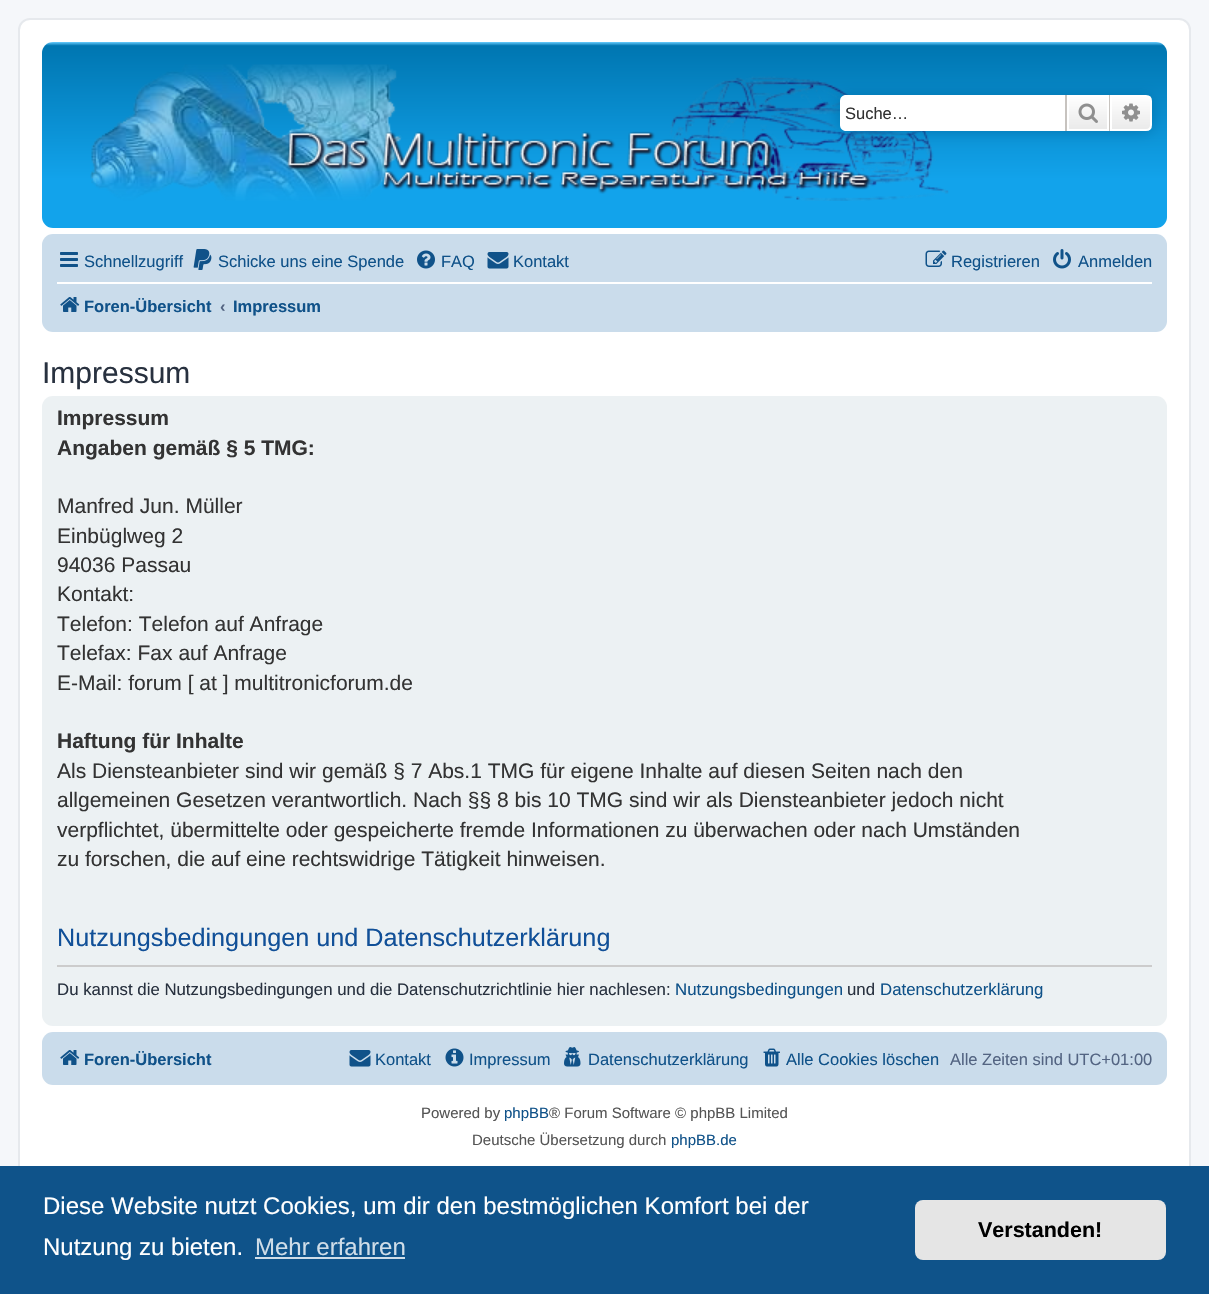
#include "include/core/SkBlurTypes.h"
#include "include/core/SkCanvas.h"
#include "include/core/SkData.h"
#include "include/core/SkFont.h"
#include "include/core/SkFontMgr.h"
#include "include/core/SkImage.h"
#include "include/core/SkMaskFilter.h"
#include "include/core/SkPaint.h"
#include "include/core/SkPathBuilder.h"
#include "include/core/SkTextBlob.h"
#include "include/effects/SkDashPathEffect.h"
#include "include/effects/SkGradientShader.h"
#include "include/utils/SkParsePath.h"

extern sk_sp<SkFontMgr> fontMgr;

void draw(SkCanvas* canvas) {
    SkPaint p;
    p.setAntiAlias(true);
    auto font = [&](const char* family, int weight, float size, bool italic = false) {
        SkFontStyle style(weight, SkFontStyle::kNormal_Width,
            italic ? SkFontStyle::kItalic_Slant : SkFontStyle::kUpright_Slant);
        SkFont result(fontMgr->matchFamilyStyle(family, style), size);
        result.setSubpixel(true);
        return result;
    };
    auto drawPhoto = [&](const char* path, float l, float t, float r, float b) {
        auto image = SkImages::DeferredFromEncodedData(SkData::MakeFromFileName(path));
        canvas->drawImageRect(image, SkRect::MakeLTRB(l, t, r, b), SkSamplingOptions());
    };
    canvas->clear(0xFFF5F7FA);
    p.setColor(0xFFFFFFFF);
    canvas->drawRoundRect(SkRect::MakeLTRB(19, 19, 1190, 1219), 11, 11, p);
    p.setStyle(SkPaint::kStroke_Style);
    p.setStrokeWidth(2);
    p.setColor(0xFFE6E9ED);
    canvas->drawRoundRect(SkRect::MakeLTRB(19, 19, 1190, 1219), 11, 11, p);
    p.setStyle(SkPaint::kFill_Style);
    {
        const SkColor colors[] = {0xFF6ACEFF, 0xFF0076B1, 0xFF12A3EB, 0xFF12A3EB};
        const float stops[] = {0, 0.02f, 0.74f, 1};
        const SkPoint ends[] = {{605, 42}, {605, 228}};
        p.setShader(SkGradientShader::MakeLinear(ends, colors, stops, 4, SkTileMode::kClamp));
        p.setAlpha(255);
    }
    canvas->drawRoundRect(SkRect::MakeLTRB(42, 42, 1167, 228), 11, 11, p);
    drawPhoto("media/1.png", 90, 64, 949, 201);
    p.setShader(nullptr);
    p.setColor(0xFF0075B0);
    p.setMaskFilter(SkMaskFilter::MakeBlur(kNormal_SkBlurStyle, 7.5f));
    canvas->drawRoundRect(SkRect::MakeLTRB(840, 95, 1152, 131), 6, 6, p);
    p.setMaskFilter(nullptr);
    p.setColor(0xFFFFFFFF);
    canvas->drawPath(SkPathBuilder().moveTo(846, 95).lineTo(1065, 95).lineTo(1065, 131).lineTo(846, 131).cubicTo(842.5f, 131, 840, 128.5f, 840, 125).lineTo(840, 101).cubicTo(840, 97.5f, 842.5f, 95, 846, 95).close().detach(), p);
    auto font1 = font("Liberation Sans", 400, 16.5f);
    p.setColor(0xFF333333);
    canvas->drawString("Suche…", 845, 119, font1, p);
    {
        const SkColor colors[] = {0xFFFFFFFF, 0xFFE9E9E9};
        const float stops[] = {0, 1};
        const SkPoint ends[] = {{1088, 95}, {1088, 131}};
        p.setShader(SkGradientShader::MakeLinear(ends, colors, stops, 2, SkTileMode::kClamp));
        p.setAlpha(255);
    }
    canvas->drawRect(SkRect::MakeLTRB(1069, 97, 1107, 129), p);
    p.setStyle(SkPaint::kStroke_Style);
    p.setShader(nullptr);
    p.setColor(0xFFFFFFFF);
    canvas->drawRect(SkRect::MakeLTRB(1068, 96, 1108, 130), p);
    p.setStyle(SkPaint::kFill_Style);
    p.setColor(0xFFC7C3BF);
    canvas->drawRect(SkRect::MakeLTRB(1109, 95, 1110, 131), p);
    canvas->drawRect(SkRect::MakeLTRB(1065, 95, 1067, 131), p);
    drawPhoto("media/2.png", 1078, 103, 1098, 123);
    {
        const SkColor colors[] = {0xFFFFFFFF, 0xFFE9E9E9};
        const float stops[] = {0, 1};
        const SkPoint ends[] = {{1131, 95}, {1131, 131}};
        p.setShader(SkGradientShader::MakeLinear(ends, colors, stops, 2, SkTileMode::kClamp));
        p.setAlpha(255);
    }
    canvas->drawPath(SkPathBuilder().moveTo(1111, 96).lineTo(1146, 96).cubicTo(1149, 96, 1151, 98, 1151, 101).lineTo(1151, 125).cubicTo(1151, 128, 1149, 130, 1146, 130).lineTo(1111, 130).close().detach(), p);
    p.setStyle(SkPaint::kStroke_Style);
    p.setShader(nullptr);
    p.setColor(0xFFFFFFFF);
    canvas->drawPath(SkPathBuilder().moveTo(1111, 96).lineTo(1146, 96).cubicTo(1149, 96, 1151, 98, 1151, 101).lineTo(1151, 125).cubicTo(1151, 128, 1149, 130, 1146, 130).lineTo(1111, 130).close().detach(), p);
    drawPhoto("media/3.png", 1122, 103, 1140, 122);
    p.setStyle(SkPaint::kFill_Style);
    p.setColor(0xFFCADCEB);
    canvas->drawRoundRect(SkRect::MakeLTRB(42, 234, 1167, 332), 11, 11, p);
    drawPhoto("media/4.png", 60, 252, 78, 267);
    p.setColor(0xFF105289);
    canvas->drawString("Schnellzugriff", 84, 267, font1, p);
    drawPhoto("media/5.png", 193, 249, 212, 270);
    canvas->drawString("Schicke uns eine Spende", 218, 267, font1, p);
    drawPhoto("media/6.png", 417, 250, 435, 269);
    canvas->drawString("FAQ", 441, 267, font1, p);
    drawPhoto("media/7.png", 487, 252, 509, 269);
    canvas->drawString("Kontakt", 513, 267, font1, p);
    drawPhoto("media/8.png", 925, 250, 947, 267);
    canvas->drawString("Registrieren", 951, 267, font1, p);
    drawPhoto("media/9.png", 1053, 249, 1071, 269);
    canvas->drawString("Anmelden", 1078, 267, font1, p);
    p.setColor(0xFFFFFFFF);
    canvas->drawRect(SkRect::MakeLTRB(57, 282, 1152, 284), p);
    drawPhoto("media/10.png", 60, 297, 80, 312);
    auto font2 = font("Liberation Sans", 700, 16.5f);
    p.setColor(0xFF105289);
    canvas->drawString("Foren-Übersicht", 84, 312, font2, p);
    p.setColor(0xFF536482);
    canvas->drawString("‹", 220, 312, font2, p);
    p.setColor(0xFF105289);
    canvas->drawString("Impressum", 233, 312, font2, p);
    auto font3 = font("Liberation Sans", 400, 30);
    p.setColor(0xFF28313F);
    canvas->drawString("Impressum", 42, 383, font3, p);
    p.setColor(0xFFECF1F3);
    canvas->drawRoundRect(SkRect::MakeLTRB(42, 396, 1167, 1026), 11, 11, p);
    auto font4 = font("Liberation Sans", 700, 21);
    p.setColor(0xFF333333);
    canvas->drawString("Impressum", 57, 425, font4, p);
    canvas->drawString("Angaben gemäß § 5 TMG:", 57, 455, font4, p);
    auto font5 = font("Liberation Sans", 400, 21);
    {
        const struct { const char* s; float x, y; } items[] = {
            {"Manfred Jun. Müller", 57, 513},
            {"Einbüglweg 2", 57, 543},
            {"94036 Passau", 57, 572},
            {"Kontakt:", 57, 601},
            {"Telefon: Telefon auf Anfrage", 57, 631},
            {"Telefax: Fax auf Anfrage", 57, 660},
            {"E-Mail: forum [ at ] multitronicforum.de", 57, 690},
        };
        for (auto [s, x, y] : items) {
            canvas->drawString(s, x, y, font5, p);
        }
    }
    canvas->drawString("Haftung für Inhalte", 57, 748, font4, p);
    {
        const struct { const char* s; float x, y; } items[] = {
            {"Als Diensteanbieter sind wir gemäß § 7 Abs.1 TMG für eigene Inhalte auf diesen Seiten nach den", 57, 778},
            {"allgemeinen Gesetzen verantwortlich. Nach §§ 8 bis 10 TMG sind wir als Diensteanbieter jedoch nicht", 57, 807},
            {"verpflichtet, übermittelte oder gespeicherte fremde Informationen zu überwachen oder nach Umständen", 57, 837},
            {"zu forschen, die auf eine rechtswidrige Tätigkeit hinweisen.", 57, 866},
        };
        for (auto [s, x, y] : items) {
            canvas->drawString(s, x, y, font5, p);
        }
    }
    p.setColor(0xFFCCCCCC);
    canvas->drawRect(SkRect::MakeLTRB(57, 965, 1152, 967), p);
    auto font6 = font("Liberation Sans", 400, 25.2f);
    p.setColor(0xFF115098);
    canvas->drawString("Nutzungsbedingungen und Datenschutzerklärung", 57, 946, font6, p);
    auto font7 = font("Liberation Sans", 400, 16.8f);
    p.setColor(0xFF28313F);
    canvas->drawString("Du kannst die Nutzungsbedingungen und die Datenschutzrichtlinie hier nachlesen:", 57, 995, font7, p);
    p.setColor(0xFF105289);
    canvas->drawString("Nutzungsbedingungen", 675, 995, font7, p);
    p.setColor(0xFF28313F);
    canvas->drawString("und", 847, 995, font7, p);
    p.setColor(0xFF105289);
    canvas->drawString("Datenschutzerklärung", 880, 995, font7, p);
    p.setColor(0xFFCADCEB);
    canvas->drawRoundRect(SkRect::MakeLTRB(42, 1032, 1167, 1085), 11, 11, p);
    drawPhoto("media/10.png", 60, 1050, 80, 1065);
    p.setColor(0xFF105289);
    canvas->drawString("Foren-Übersicht", 84, 1065, font2, p);
    drawPhoto("media/7.png", 349, 1050, 371, 1067);
    canvas->drawString("Kontakt", 375, 1065, font1, p);
    drawPhoto("media/11.png", 445, 1048, 464, 1067);
    canvas->drawString("Impressum", 469, 1065, font1, p);
    drawPhoto("media/12.png", 564, 1047, 581, 1067);
    canvas->drawString("Datenschutzerklärung", 588, 1065, font1, p);
    drawPhoto("media/13.png", 763, 1048, 780, 1067);
    canvas->drawString("Alle Cookies löschen", 786, 1065, font1, p);
    p.setColor(0xFF536482);
    canvas->drawString("Alle Zeiten sind UTC+01:00", 950, 1065, font1, p);
    auto font8 = font("Liberation Sans", 400, 15);
    p.setColor(0xFF555555);
    canvas->drawString("Powered by", 421, 1118, font8, p);
    p.setColor(0xFF105289);
    canvas->drawString("phpBB", 504, 1118, font8, p);
    p.setColor(0xFF555555);
    canvas->drawString("® Forum Software © phpBB Limited", 549, 1118, font8, p);
    canvas->drawString("Deutsche Übersetzung durch", 472, 1145, font8, p);
    p.setColor(0xFF105289);
    canvas->drawString("phpBB.de", 671, 1145, font8, p);
    p.setColor(0xFF0F538A);
    canvas->drawRect(SkRect::MakeLTRB(0, 1166, 1209, 1294), p);
    auto font9 = font("Liberation Sans", 400, 24);
    p.setColor(0xFFFFFFFF);
    canvas->drawString("Diese Website nutzt Cookies, um dir den bestmöglichen Komfort bei der", 43, 1214, font9, p);
    canvas->drawString("Nutzung zu bieten.", 43, 1255, font9, p);
    p.setColor(0xFFCFDDE8);
    canvas->drawString("Mehr erfahren", 255, 1255, font9, p);
    canvas->drawRect(SkRect::MakeLTRB(255, 1257, 405, 1259), p);
    p.setColor(0xFFE5E5E5);
    canvas->drawRoundRect(SkRect::MakeLTRB(915, 1200, 1166, 1260), 8, 8, p);
    auto font10 = font("Liberation Sans", 700, 21.5f);
    p.setColor(0xFF000000);
    canvas->drawString("Verstanden!", 978, 1237, font10, p);
}
